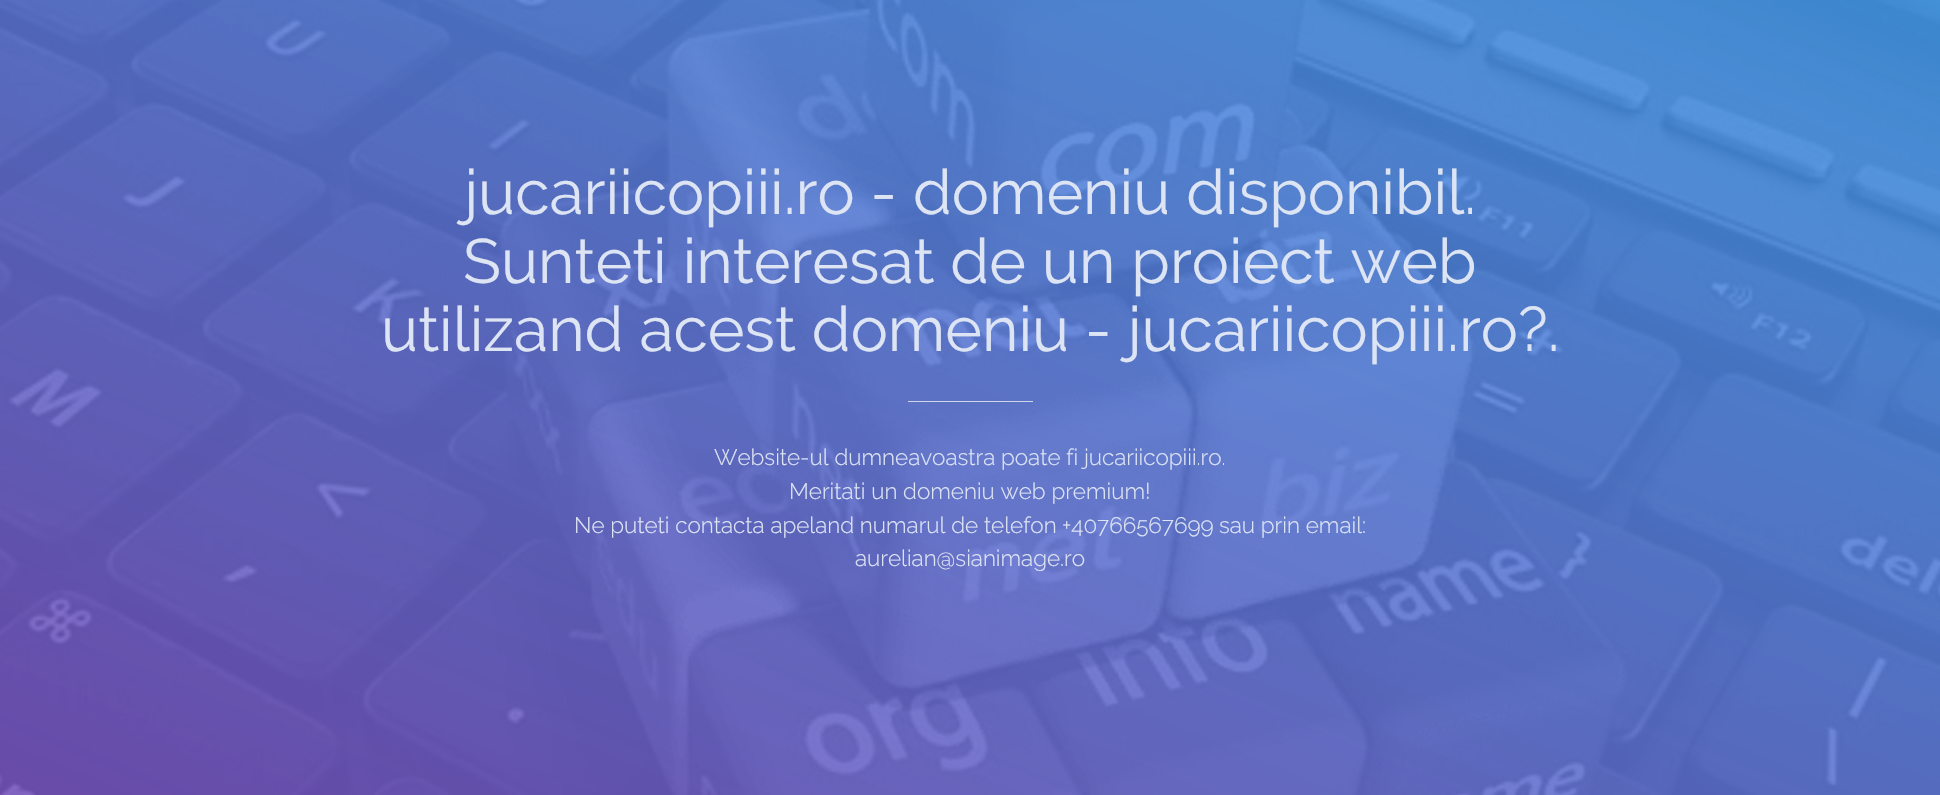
#include "include/core/SkBlurTypes.h"
#include "include/core/SkCanvas.h"
#include "include/core/SkData.h"
#include "include/core/SkFont.h"
#include "include/core/SkFontMgr.h"
#include "include/core/SkImage.h"
#include "include/core/SkMaskFilter.h"
#include "include/core/SkPaint.h"
#include "include/core/SkPathBuilder.h"
#include "include/core/SkTextBlob.h"
#include "include/effects/SkDashPathEffect.h"
#include "include/effects/SkGradientShader.h"
#include "include/utils/SkParsePath.h"

extern sk_sp<SkFontMgr> fontMgr;

void draw(SkCanvas* canvas) {
    SkPaint p;
    p.setAntiAlias(true);
    auto font = [&](const char* family, int weight, float size, bool italic = false) {
        SkFontStyle style(weight, SkFontStyle::kNormal_Width,
            italic ? SkFontStyle::kItalic_Slant : SkFontStyle::kUpright_Slant);
        SkFont result(fontMgr->matchFamilyStyle(family, style), size);
        result.setSubpixel(true);
        return result;
    };
    auto drawPhoto = [&](const char* path, float l, float t, float r, float b) {
        auto image = SkImages::DeferredFromEncodedData(SkData::MakeFromFileName(path));
        canvas->drawImageRect(image, SkRect::MakeLTRB(l, t, r, b), SkSamplingOptions());
    };
    canvas->clear(0xFFFFFFFF);
    drawPhoto("media/1.png", 0, 0, 1940, 795);
    auto font1 = font("Raleway", 400, 62.5f);
    p.setColor(0xFFDDE4F4);
    {
        const struct { const char* s; float x, y; } items[] = {
            {"jucariicopiii.ro - domeniu disponibil.", 464, 214},
            {"Sunteti interesat de un proiect web", 463, 283},
            {"utilizand acest domeniu - jucariicopiii.ro?.", 381, 351},
        };
        for (auto [s, x, y] : items) {
            canvas->drawString(s, x, y, font1, p);
        }
    }
    p.setColor(0xCCEDEDF0);
    canvas->drawRect(SkRect::MakeLTRB(908, 401, 1033, 402), p);
    auto font2 = font("Raleway", 300, 22.5f);
    p.setColor(0xFFDDE4F4);
    {
        const struct { const char* s; float x, y; } items[] = {
            {"Website-ul dumneavoastra poate fi jucariicopiii.ro.", 714, 465},
            {"Meritati un domeniu web premium!", 789, 499},
            {"Ne puteti contacta apeland numarul de telefon", 574, 533},
            {"+40766567699", 1062, 533},
            {"sau prin email:", 1219, 533},
            {"aurelian@sianimage.ro", 855, 566},
        };
        for (auto [s, x, y] : items) {
            canvas->drawString(s, x, y, font2, p);
        }
    }
}
